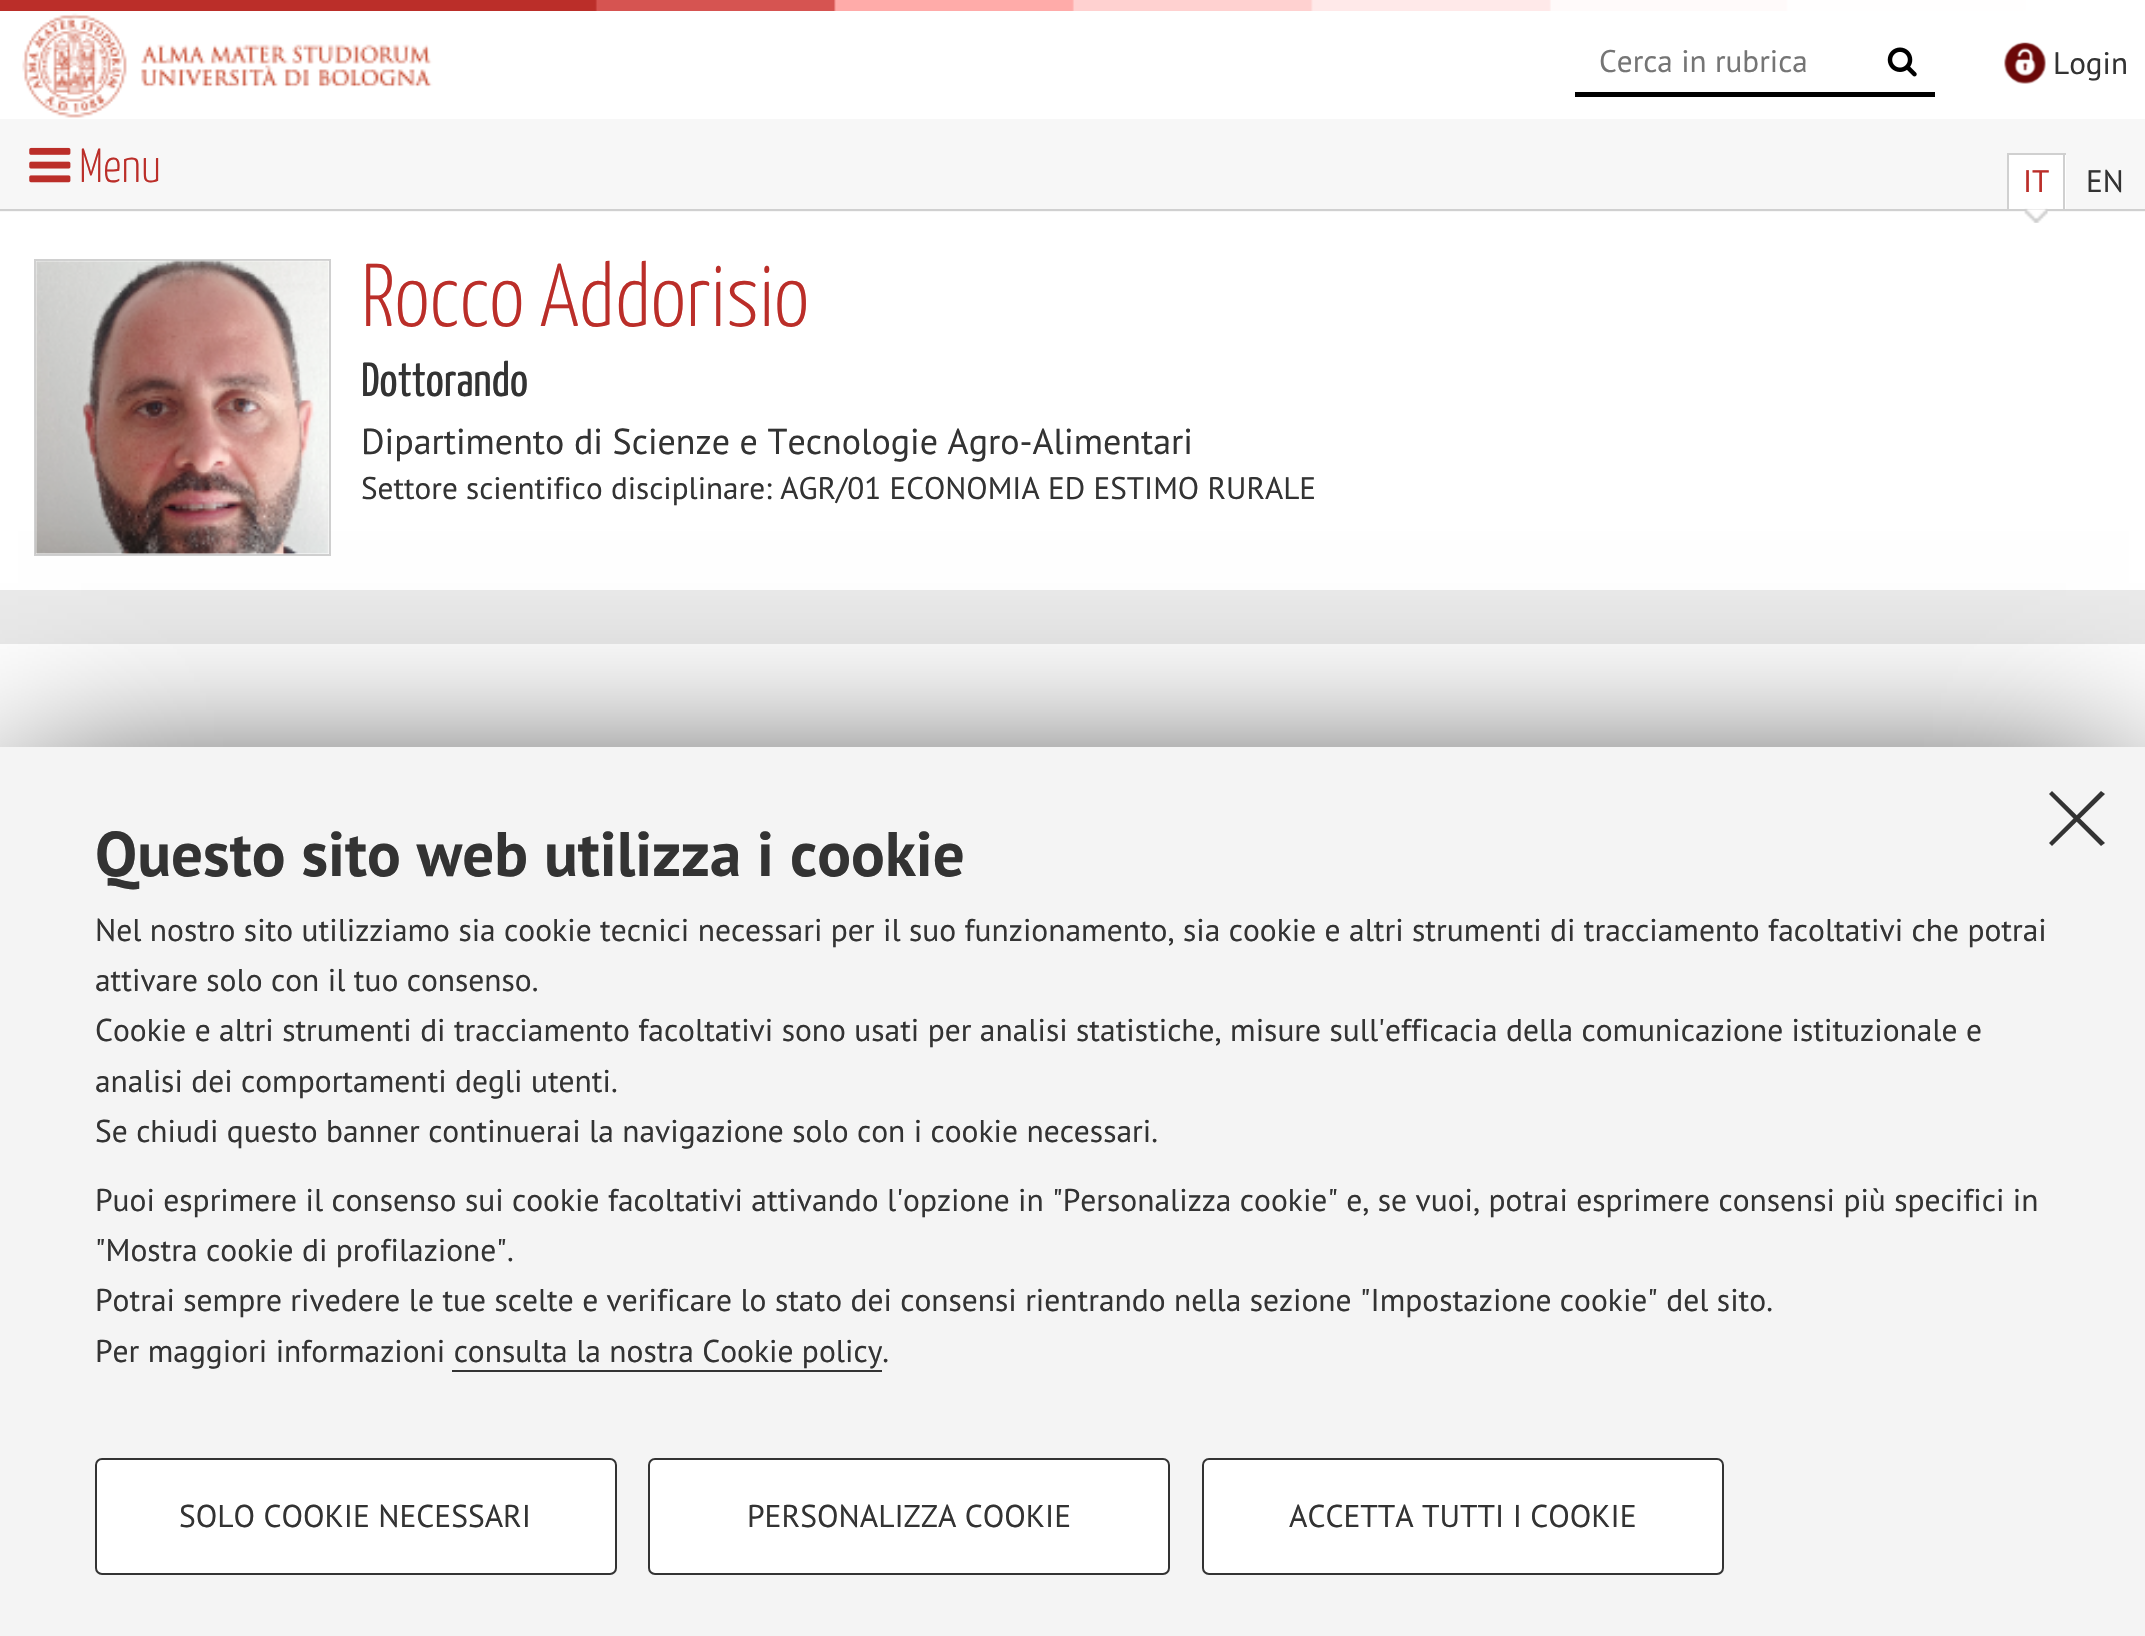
#include "include/core/SkBlurTypes.h"
#include "include/core/SkCanvas.h"
#include "include/core/SkData.h"
#include "include/core/SkFont.h"
#include "include/core/SkFontMgr.h"
#include "include/core/SkImage.h"
#include "include/core/SkMaskFilter.h"
#include "include/core/SkPaint.h"
#include "include/core/SkPathBuilder.h"
#include "include/core/SkTextBlob.h"
#include "include/effects/SkDashPathEffect.h"
#include "include/effects/SkGradientShader.h"
#include "include/utils/SkParsePath.h"

extern sk_sp<SkFontMgr> fontMgr;

void draw(SkCanvas* canvas) {
    SkPaint p;
    p.setAntiAlias(true);
    auto font = [&](const char* family, int weight, float size, bool italic = false) {
        SkFontStyle style(weight, SkFontStyle::kNormal_Width,
            italic ? SkFontStyle::kItalic_Slant : SkFontStyle::kUpright_Slant);
        SkFont result(fontMgr->matchFamilyStyle(family, style), size);
        result.setSubpixel(true);
        return result;
    };
    auto drawPhoto = [&](const char* path, float l, float t, float r, float b) {
        auto image = SkImages::DeferredFromEncodedData(SkData::MakeFromFileName(path));
        canvas->drawImageRect(image, SkRect::MakeLTRB(l, t, r, b), SkSamplingOptions());
    };
    canvas->clear(0xFFEAEAEA);
    drawPhoto("media/1.png", 0, 0, 2145, 11);
    p.setColor(0xFFFFFFFF);
    canvas->drawRect(SkRect::MakeLTRB(0, 11, 2145, 119), p);
    drawPhoto("media/2.png", 22, 13, 433, 118);
    p.setColor(0xFF000000);
    canvas->drawRect(SkRect::MakeLTRB(1575, 92, 1935, 97), p);
    auto font1 = font("PT Sans", 400, 31.2f);
    p.setColor(0xFF757575);
    canvas->drawString("Cerca in rubrica", 1599, 72, font1, p);
    drawPhoto("media/3.png", 1887, 47, 1917, 77);
    drawPhoto("media/4.png", 2004, 42, 2046, 84);
    p.setColor(0xFF333333);
    canvas->drawString("Login", 2053, 74, font1, p);
    p.setColor(0xFFF7F7F7);
    canvas->drawRect(SkRect::MakeLTRB(0, 119, 2145, 212), p);
    p.setColor(0xFFD0D0D0);
    canvas->drawRect(SkRect::MakeLTRB(0, 209, 2145, 211), p);
    drawPhoto("media/5.png", 29, 147, 71, 183);
    auto font2 = font("Yanone Kaffeesatz", 300, 48);
    p.setColor(0xFFBB2E29);
    canvas->drawString("Menu", 79, 182, font2, p);
    {
        const struct { float l, t, r, b; SkColor color; } items[] = {
            {2009, 155, 2066, 209, 0xFFFFFFFF},
            {2007, 153, 2066, 155, 0xFFD0D0D0},
            {2063, 153, 2065, 209, 0xFFD0D0D0},
            {2007, 153, 2009, 209, 0xFFD0D0D0},
        };
        for (auto [l, t, r, b, color] : items) {
            p.setColor(color);
            canvas->drawRect(SkRect::MakeLTRB(l, t, r, b), p);
        }
    }
    p.setColor(0xFFBB2E29);
    canvas->drawString("IT", 2023, 192, font1, p);
    p.setColor(0xFFFFFFFF);
    canvas->drawRect(SkRect::MakeLTRB(0, 212, 2145, 590), p);
    drawPhoto("media/6.png", 2024, 208, 2048, 223);
    p.setColor(0xFF333333);
    canvas->drawString("EN", 2086, 192, font1, p);
    p.setStyle(SkPaint::kStroke_Style);
    p.setStrokeWidth(2);
    p.setColor(0xFFD0D0D0);
    canvas->drawRect(SkRect::MakeLTRB(35, 260, 330, 555), p);
    drawPhoto("media/7.png", 35, 260, 329, 555);
    auto font3 = font("Yanone Kaffeesatz", 300, 88.75f);
    p.setStyle(SkPaint::kFill_Style);
    p.setColor(0xFFBB2E29);
    canvas->drawString("Rocco Addorisio", 361, 326, font3, p);
    auto font4 = font("Yanone Kaffeesatz", 400, 48);
    p.setColor(0xFF333333);
    canvas->drawString("Dottorando", 361, 396, font4, p);
    auto font5 = font("PT Sans", 400, 36);
    canvas->drawString("Dipartimento di Scienze e Tecnologie Agro-Alimentari", 361, 454, font5, p);
    canvas->drawString("Settore scientifico disciplinare: AGR/01 ECONOMIA ED ESTIMO RURALE", 361, 499, font1, p);
    p.setColor(0xFFFFFFFF);
    canvas->drawRect(SkRect::MakeLTRB(0, 644, 2145, 747), p);
    p.setColor(0xFF000000);
    p.setMaskFilter(SkMaskFilter::MakeBlur(kNormal_SkBlurStyle, 90));
    canvas->drawRect(SkRect::MakeLTRB(18, 801, 2129, 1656), p);
    p.setMaskFilter(nullptr);
    p.setColor(0xFFF4F4F4);
    canvas->drawRect(SkRect::MakeLTRB(0, 747, 2145, 1636), p);
    p.setColor(0xFF333333);
    canvas->drawPath(SkPathBuilder().moveTo(2101, 791).lineTo(2105, 794).lineTo(2052, 846).lineTo(2049, 843).close().detach(), p);
    canvas->drawPath(SkPathBuilder().moveTo(2049, 794).lineTo(2052, 791).lineTo(2105, 843).lineTo(2101, 846).close().detach(), p);
    auto font6 = font("PT Sans", 700, 63);
    canvas->drawString("Questo sito web utilizza i cookie", 95, 876, font6, p);
    auto font7 = font("PT Sans", 400, 31.5f);
    {
        const struct { const char* s; float x, y; } items[] = {
            {"Nel nostro sito utilizziamo sia cookie tecnici necessari per il suo funzionamento, sia cookie e altri strumenti di tracciamento facoltativi che potrai", 95, 941},
            {"attivare solo con il tuo consenso.", 95, 991},
            {"Cookie e altri strumenti di tracciamento facoltativi sono usati per analisi statistiche, misure sull'efficacia della comunicazione istituzionale e", 95, 1041},
            {"analisi dei comportamenti degli utenti.", 95, 1092},
            {"Se chiudi questo banner continuerai la navigazione solo con i cookie necessari.", 95, 1142},
            {"Puoi esprimere il consenso sui cookie facoltativi attivando l'opzione in \"Personalizza cookie\" e, se vuoi, potrai esprimere consensi più specifici in", 95, 1211},
            {"\"Mostra cookie di profilazione\".", 95, 1261},
            {"Potrai sempre rivedere le tue scelte e verificare lo stato dei consensi rientrando nella sezione \"Impostazione cookie\" del sito.", 95, 1311},
            {"Per maggiori informazioni consulta la nostra Cookie policy.", 95, 1362},
        };
        for (auto [s, x, y] : items) {
            canvas->drawString(s, x, y, font7, p);
        }
    }
    canvas->drawRect(SkRect::MakeLTRB(452, 1370, 882, 1372), p);
    p.setColor(0xFFFFFFFF);
    canvas->drawRoundRect(SkRect::MakeLTRB(96, 1459, 616, 1574), 6, 6, p);
    p.setStyle(SkPaint::kStroke_Style);
    p.setColor(0xFF333333);
    canvas->drawRoundRect(SkRect::MakeLTRB(96, 1459, 616, 1574), 6, 6, p);
    p.setStyle(SkPaint::kFill_Style);
    canvas->drawString("SOLO COOKIE NECESSARI", 179, 1527, font7, p);
    p.setColor(0xFFFFFFFF);
    canvas->drawRoundRect(SkRect::MakeLTRB(649, 1459, 1169, 1574), 6, 6, p);
    p.setStyle(SkPaint::kStroke_Style);
    p.setColor(0xFF333333);
    canvas->drawRoundRect(SkRect::MakeLTRB(649, 1459, 1169, 1574), 6, 6, p);
    p.setStyle(SkPaint::kFill_Style);
    canvas->drawString("PERSONALIZZA COOKIE", 747, 1527, font7, p);
    p.setColor(0xFFFFFFFF);
    canvas->drawRoundRect(SkRect::MakeLTRB(1203, 1459, 1723, 1574), 6, 6, p);
    p.setStyle(SkPaint::kStroke_Style);
    p.setColor(0xFF333333);
    canvas->drawRoundRect(SkRect::MakeLTRB(1203, 1459, 1723, 1574), 6, 6, p);
    p.setStyle(SkPaint::kFill_Style);
    canvas->drawString("ACCETTA TUTTI I COOKIE", 1289, 1527, font7, p);
}
